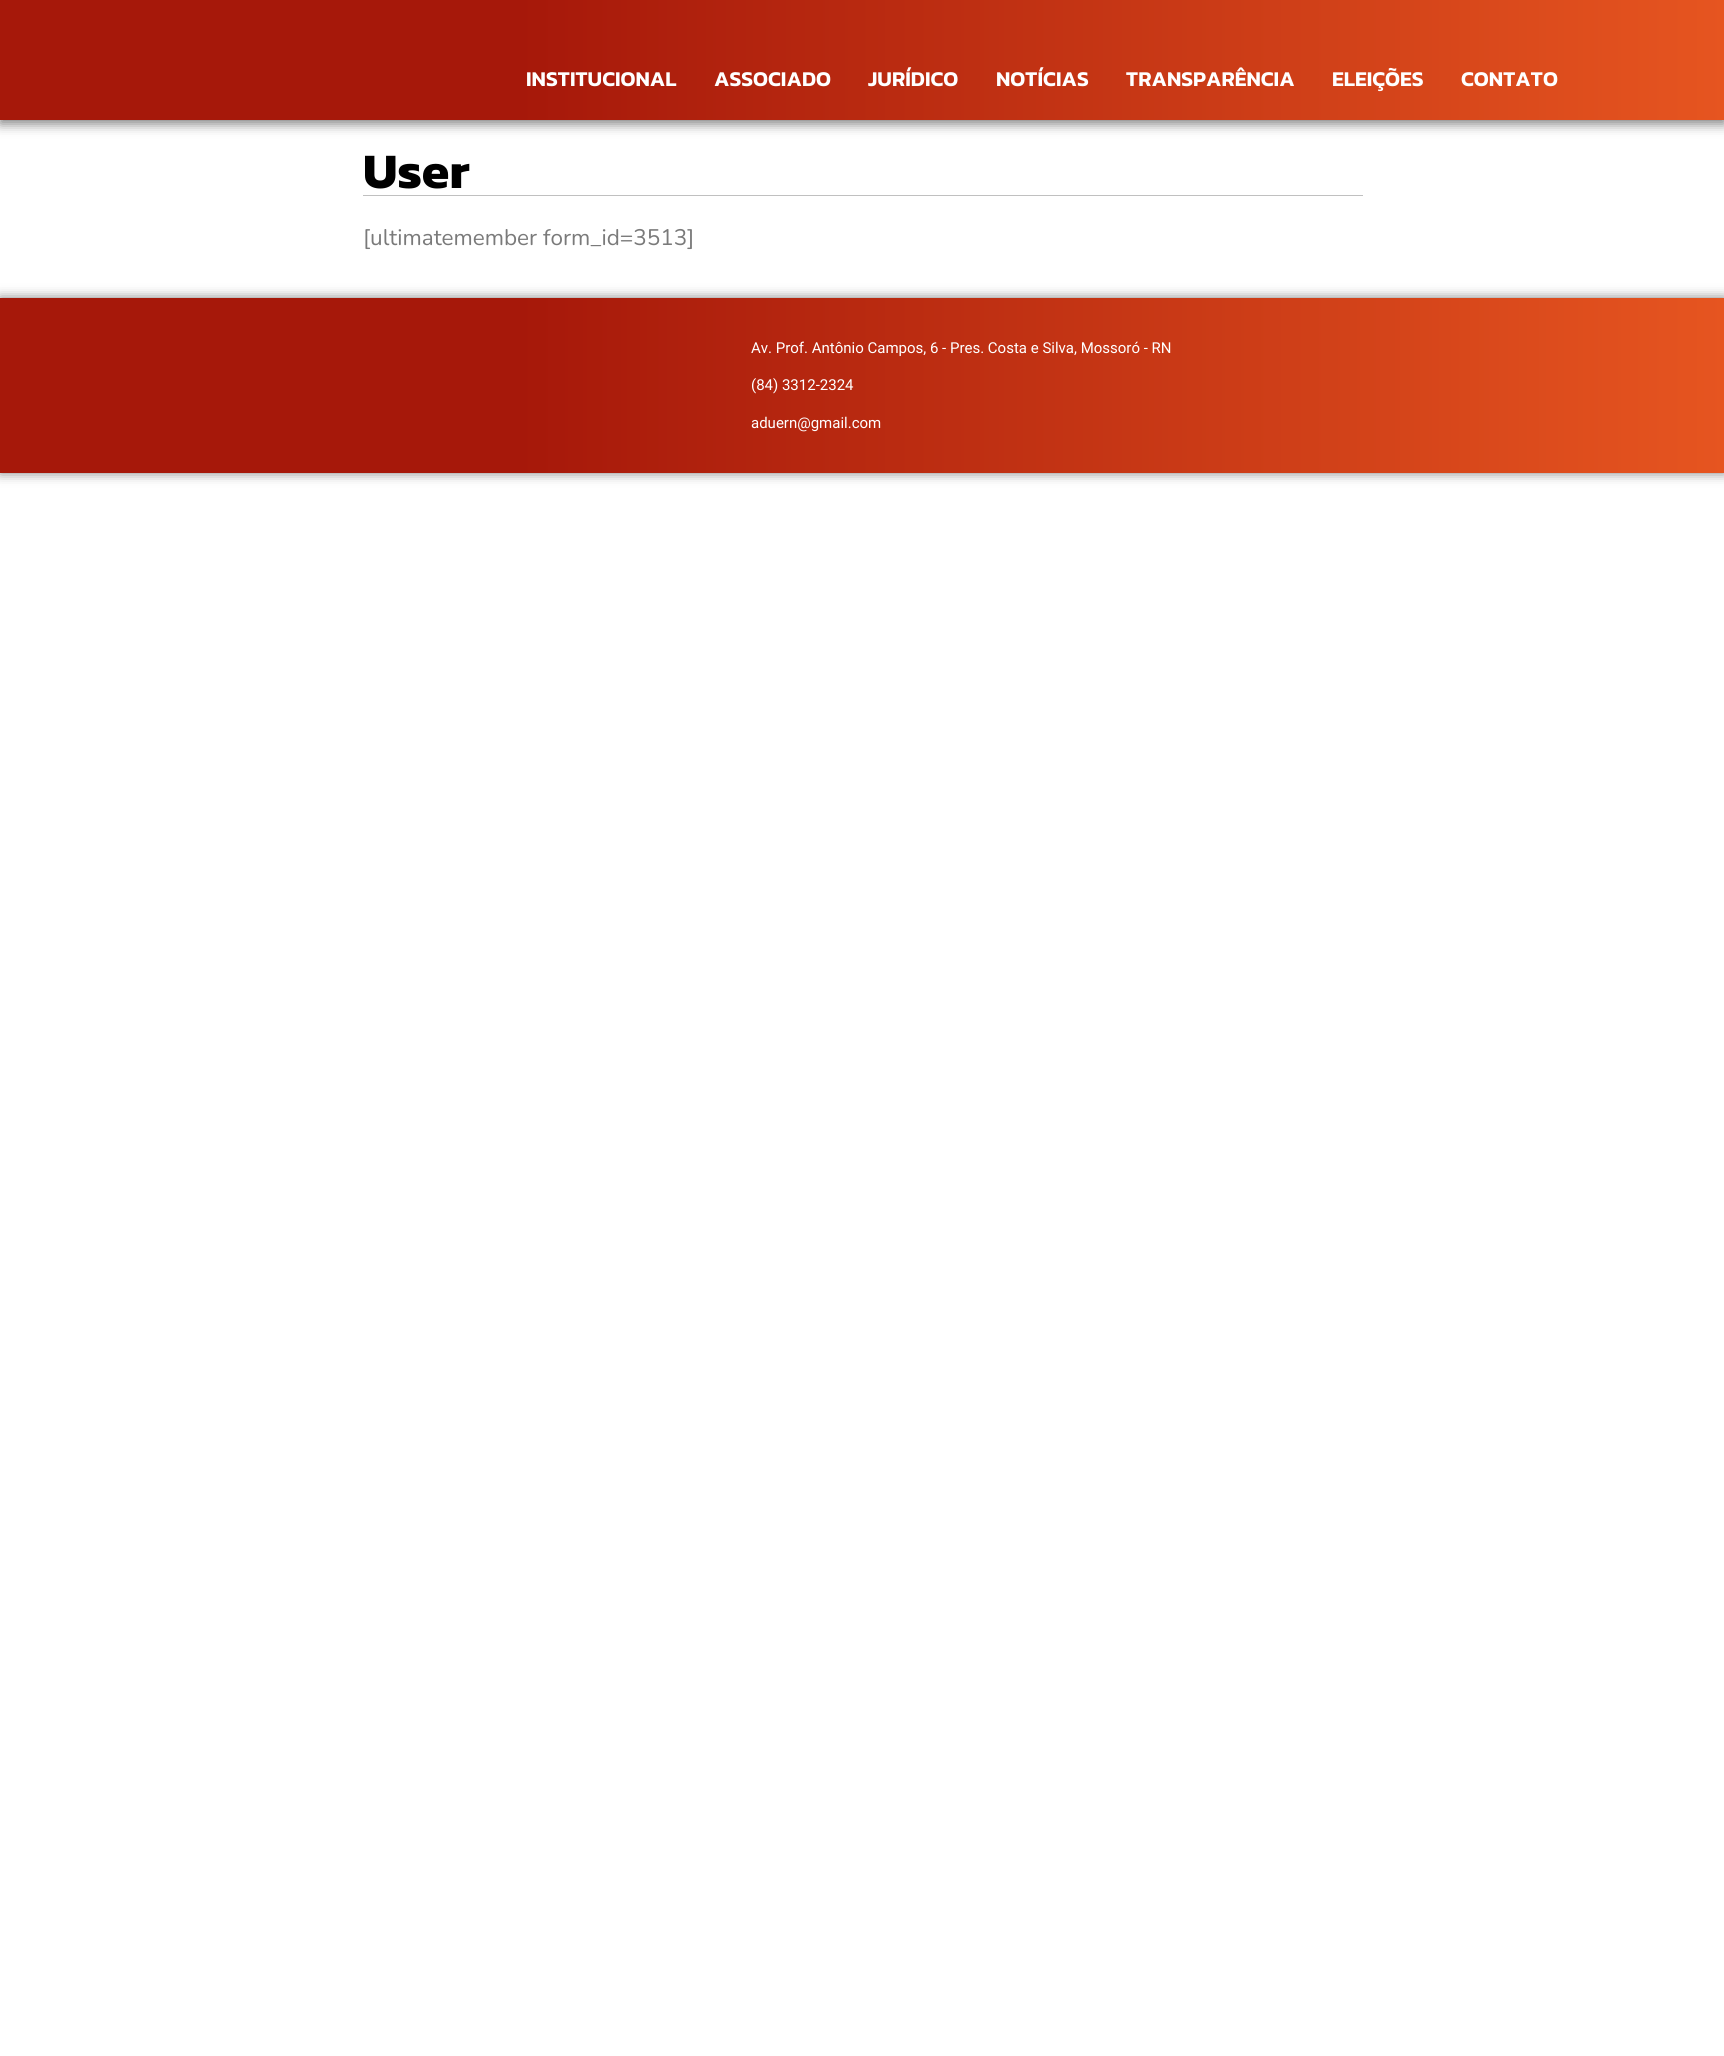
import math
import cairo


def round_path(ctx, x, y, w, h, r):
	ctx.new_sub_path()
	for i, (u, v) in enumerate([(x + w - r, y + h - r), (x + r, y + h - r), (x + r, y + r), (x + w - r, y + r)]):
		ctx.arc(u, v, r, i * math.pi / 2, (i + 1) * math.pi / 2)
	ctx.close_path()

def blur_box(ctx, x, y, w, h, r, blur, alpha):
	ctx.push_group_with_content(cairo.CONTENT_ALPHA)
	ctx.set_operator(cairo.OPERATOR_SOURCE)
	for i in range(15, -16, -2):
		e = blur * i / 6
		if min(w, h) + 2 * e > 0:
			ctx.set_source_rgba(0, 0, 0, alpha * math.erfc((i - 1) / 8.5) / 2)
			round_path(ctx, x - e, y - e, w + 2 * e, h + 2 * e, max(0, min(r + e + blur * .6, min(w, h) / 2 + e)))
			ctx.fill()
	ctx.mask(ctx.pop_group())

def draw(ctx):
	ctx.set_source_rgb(1, 1, 1)
	ctx.paint()
	ctx.set_source_rgb(0, 0, 0)
	blur_box(ctx, 0, 4, 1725, 120, 0, 6, 0.5)
	gradient = cairo.LinearGradient(0, 60, 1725, 60)
	gradient.add_color_stop_rgba(0.3, 0.651, 0.094, 0.039, 1)
	gradient.add_color_stop_rgba(1, 0.902, 0.333, 0.125, 1)
	ctx.set_source(gradient)
	ctx.rectangle(0, 0, 1724, 120)
	ctx.fill()
	ctx.select_font_face('Kanit SemiBold')
	ctx.set_font_size(21.25)
	ctx.set_source_rgb(1, 1, 1)
	for x, y, s in [
		(526, 86, 'INSTITUCIONAL'),
		(714, 86, 'ASSOCIADO'),
		(868, 86, 'JURÍDICO'),
		(996, 86, 'NOTÍCIAS'),
		(1126, 86, 'TRANSPARÊNCIA'),
		(1332, 86, 'ELEIÇÕES'),
		(1461, 86, 'CONTATO'),
	]:
		ctx.move_to(x, y)
		ctx.show_text(s)
	ctx.set_source_rgb(0.753, 0.753, 0.753)
	ctx.rectangle(363, 195, 1000, 1)
	ctx.fill()
	ctx.select_font_face('Kanit', cairo.FONT_SLANT_NORMAL, cairo.FONT_WEIGHT_BOLD)
	ctx.set_font_size(50)
	ctx.set_source_rgb(0, 0, 0)
	ctx.move_to(363, 188)
	ctx.show_text('User')
	ctx.select_font_face('Nunito')
	ctx.set_font_size(22.5)
	ctx.set_source_rgb(0.478, 0.478, 0.478)
	ctx.move_to(363, 245)
	ctx.show_text('[ultimatemember form_id=3513]')
	ctx.set_source_rgb(0, 0, 0)
	blur_box(ctx, 0, 298, 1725, 175, 0, 6, 0.5)
	gradient = cairo.LinearGradient(0, 385, 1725, 385)
	gradient.add_color_stop_rgba(0.3, 0.651, 0.094, 0.039, 1)
	gradient.add_color_stop_rgba(1, 0.902, 0.333, 0.125, 1)
	ctx.set_source(gradient)
	ctx.rectangle(0, 298, 1724, 175)
	ctx.fill()
	ctx.select_font_face('Roboto')
	ctx.set_font_size(15)
	ctx.set_source_rgb(1, 1, 1)
	for x, y, s in [
		(751, 353, 'Av. Prof. Antônio Campos, 6 - Pres. Costa e Silva, Mossoró - RN'),
		(751, 390, '(84) 3312-2324'),
		(751, 428, 'aduern@gmail.com'),
	]:
		ctx.move_to(x, y)
		ctx.show_text(s)


surface = cairo.ImageSurface(cairo.FORMAT_RGB24, 1724, 2056)
ctx = cairo.Context(surface)
options = cairo.FontOptions()
options.set_hint_metrics(cairo.HINT_METRICS_OFF)
options.set_hint_style(cairo.HINT_STYLE_NONE)
ctx.set_font_options(options)
ctx.set_miter_limit(4)
draw(ctx)
surface.write_to_png('image.png')
